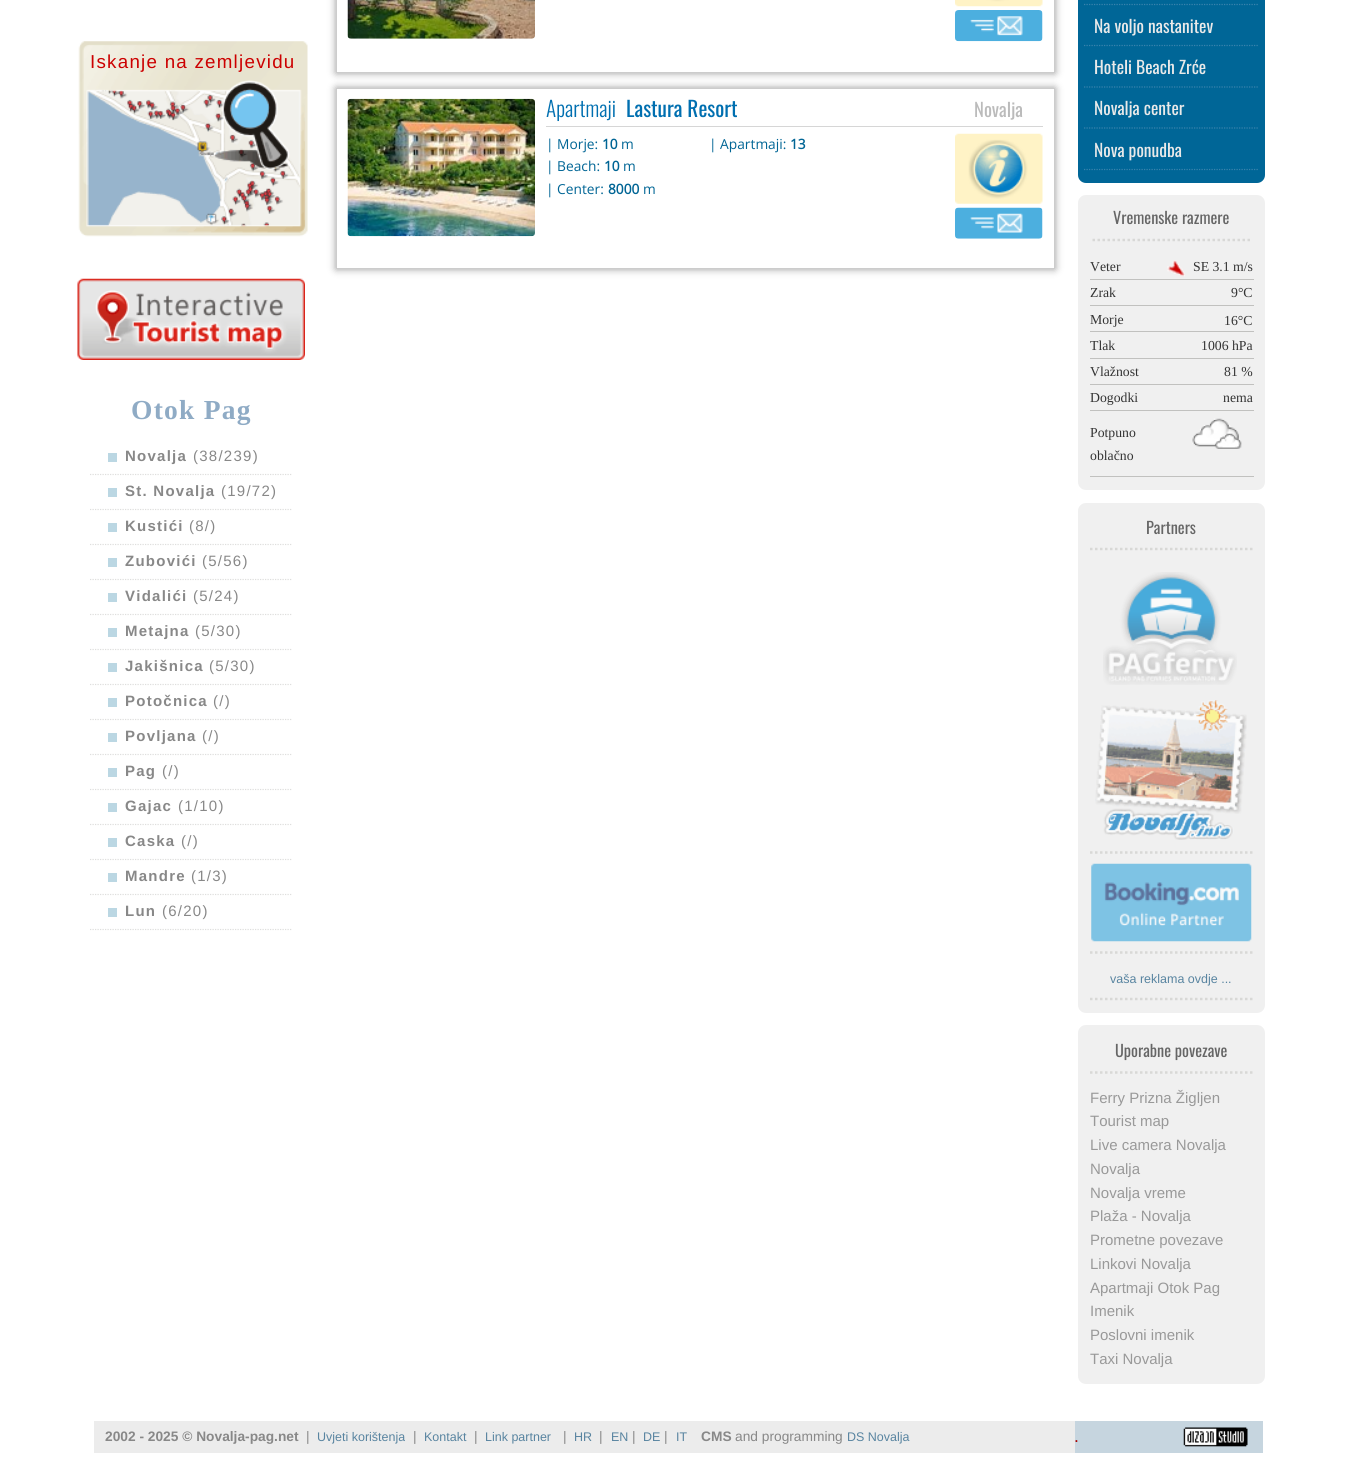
import math
import cairo


def write_spaced(ctx, x, y, s, letter, word):
	ctx.move_to(x, y)
	for ch in s:
		ctx.show_text(ch)
		ctx.rel_move_to(letter + word * (ch == ' '), 0)

def round_path(ctx, x, y, w, h, r):
	ctx.new_sub_path()
	for i, (u, v) in enumerate([(x + w - r, y + h - r), (x + r, y + h - r), (x + r, y + r), (x + w - r, y + r)]):
		ctx.arc(u, v, r, i * math.pi / 2, (i + 1) * math.pi / 2)
	ctx.close_path()

def blur_box(ctx, x, y, w, h, r, blur, alpha):
	ctx.push_group_with_content(cairo.CONTENT_ALPHA)
	ctx.set_operator(cairo.OPERATOR_SOURCE)
	for i in range(15, -16, -2):
		e = blur * i / 6
		if min(w, h) + 2 * e > 0:
			ctx.set_source_rgba(0, 0, 0, alpha * math.erfc((i - 1) / 8.5) / 2)
			round_path(ctx, x - e, y - e, w + 2 * e, h + 2 * e, max(0, min(r + e + blur * .6, min(w, h) / 2 + e)))
			ctx.fill()
	ctx.mask(ctx.pop_group())

def paste(ctx, path, x, y, w, h):
	ctx.save()
	ctx.set_source_surface(cairo.ImageSurface.create_from_png(path), x, y)
	ctx.rectangle(x, y, w, h)
	ctx.fill()
	ctx.restore()

def draw(ctx):
	ctx.set_source_rgb(1, 1, 1)
	ctx.paint()
	paste(ctx, 'media/1.png', 78, 41, 230, 196)
	ctx.select_font_face('Liberation Sans')
	ctx.set_font_size(18.75)
	ctx.set_source_rgb(0.8, 0, 0)
	write_spaced(ctx, 90, 68, 'Iskanje na zemljevidu', 1.25, 0)
	paste(ctx, 'media/2.png', 77, 278, 228, 82)
	ctx.select_font_face('Liberation Serif', cairo.FONT_SLANT_NORMAL, cairo.FONT_WEIGHT_BOLD)
	ctx.set_font_size(27.5)
	ctx.set_source_rgb(0.561, 0.671, 0.773)
	write_spaced(ctx, 131, 419, 'Otok Pag', 1.25, 0)
	ctx.new_path()
	ctx.move_to(90, 474.5)
	ctx.line_to(292.5, 474.5)
	ctx.set_source_rgb(0.871, 0.871, 0.867)
	ctx.set_line_width(1.2)
	ctx.set_dash([1.25, 1.25])
	ctx.stroke()
	ctx.set_source_rgb(0.733, 0.843, 0.89)
	ctx.rectangle(108, 453, 9, 9)
	ctx.fill()
	ctx.select_font_face('Liberation Sans', cairo.FONT_SLANT_NORMAL, cairo.FONT_WEIGHT_BOLD)
	ctx.set_font_size(15)
	ctx.set_source_rgb(0.533, 0.533, 0.533)
	write_spaced(ctx, 125, 461, 'Novalja', 1.25, 0)
	ctx.select_font_face('Liberation Sans')
	write_spaced(ctx, 193, 461, '(38/239)', 1.25, 0)
	ctx.new_path()
	ctx.move_to(90, 509.5)
	ctx.line_to(292.5, 509.5)
	ctx.set_source_rgb(0.871, 0.871, 0.867)
	ctx.stroke()
	ctx.set_source_rgb(0.733, 0.843, 0.89)
	ctx.rectangle(108, 488, 9, 9)
	ctx.fill()
	ctx.select_font_face('Liberation Sans', cairo.FONT_SLANT_NORMAL, cairo.FONT_WEIGHT_BOLD)
	ctx.set_source_rgb(0.533, 0.533, 0.533)
	write_spaced(ctx, 125, 496, 'St. Novalja', 1.25, 0)
	ctx.select_font_face('Liberation Sans')
	write_spaced(ctx, 221, 496, '(19/72)', 1.25, 0)
	ctx.new_path()
	ctx.move_to(90, 544.5)
	ctx.line_to(292.5, 544.5)
	ctx.set_source_rgb(0.871, 0.871, 0.867)
	ctx.stroke()
	ctx.set_source_rgb(0.733, 0.843, 0.89)
	ctx.rectangle(108, 523, 9, 9)
	ctx.fill()
	ctx.select_font_face('Liberation Sans', cairo.FONT_SLANT_NORMAL, cairo.FONT_WEIGHT_BOLD)
	ctx.set_source_rgb(0.533, 0.533, 0.533)
	write_spaced(ctx, 125, 531, 'Kustići', 1.25, 0)
	ctx.select_font_face('Liberation Sans')
	write_spaced(ctx, 189, 531, '(8/)', 1.25, 0)
	ctx.new_path()
	ctx.move_to(90, 579.5)
	ctx.line_to(292.5, 579.5)
	ctx.set_source_rgb(0.871, 0.871, 0.867)
	ctx.stroke()
	ctx.set_source_rgb(0.733, 0.843, 0.89)
	ctx.rectangle(108, 558, 9, 9)
	ctx.fill()
	ctx.select_font_face('Liberation Sans', cairo.FONT_SLANT_NORMAL, cairo.FONT_WEIGHT_BOLD)
	ctx.set_source_rgb(0.533, 0.533, 0.533)
	write_spaced(ctx, 125, 566, 'Zubovići', 1.25, 0)
	ctx.select_font_face('Liberation Sans')
	write_spaced(ctx, 202, 566, '(5/56)', 1.25, 0)
	ctx.new_path()
	ctx.move_to(90, 614.5)
	ctx.line_to(292.5, 614.5)
	ctx.set_source_rgb(0.871, 0.871, 0.867)
	ctx.stroke()
	ctx.set_source_rgb(0.733, 0.843, 0.89)
	ctx.rectangle(108, 593, 9, 9)
	ctx.fill()
	ctx.select_font_face('Liberation Sans', cairo.FONT_SLANT_NORMAL, cairo.FONT_WEIGHT_BOLD)
	ctx.set_source_rgb(0.533, 0.533, 0.533)
	write_spaced(ctx, 125, 601, 'Vidalići', 1.25, 0)
	ctx.select_font_face('Liberation Sans')
	write_spaced(ctx, 193, 601, '(5/24)', 1.25, 0)
	ctx.new_path()
	ctx.move_to(90, 649.5)
	ctx.line_to(292.5, 649.5)
	ctx.set_source_rgb(0.871, 0.871, 0.867)
	ctx.stroke()
	ctx.set_source_rgb(0.733, 0.843, 0.89)
	ctx.rectangle(108, 628, 9, 9)
	ctx.fill()
	ctx.select_font_face('Liberation Sans', cairo.FONT_SLANT_NORMAL, cairo.FONT_WEIGHT_BOLD)
	ctx.set_source_rgb(0.533, 0.533, 0.533)
	write_spaced(ctx, 125, 636, 'Metajna', 1.25, 0)
	ctx.select_font_face('Liberation Sans')
	write_spaced(ctx, 195, 636, '(5/30)', 1.25, 0)
	ctx.new_path()
	ctx.move_to(90, 684.5)
	ctx.line_to(292.5, 684.5)
	ctx.set_source_rgb(0.871, 0.871, 0.867)
	ctx.stroke()
	ctx.set_source_rgb(0.733, 0.843, 0.89)
	ctx.rectangle(108, 663, 9, 9)
	ctx.fill()
	ctx.select_font_face('Liberation Sans', cairo.FONT_SLANT_NORMAL, cairo.FONT_WEIGHT_BOLD)
	ctx.set_source_rgb(0.533, 0.533, 0.533)
	write_spaced(ctx, 125, 671, 'Jakišnica', 1.25, 0)
	ctx.select_font_face('Liberation Sans')
	write_spaced(ctx, 209, 671, '(5/30)', 1.25, 0)
	ctx.new_path()
	ctx.move_to(90, 719.5)
	ctx.line_to(292.5, 719.5)
	ctx.set_source_rgb(0.871, 0.871, 0.867)
	ctx.stroke()
	ctx.set_source_rgb(0.733, 0.843, 0.89)
	ctx.rectangle(108, 698, 9, 9)
	ctx.fill()
	ctx.select_font_face('Liberation Sans', cairo.FONT_SLANT_NORMAL, cairo.FONT_WEIGHT_BOLD)
	ctx.set_source_rgb(0.533, 0.533, 0.533)
	write_spaced(ctx, 125, 706, 'Potočnica', 1.25, 0)
	ctx.select_font_face('Liberation Sans')
	write_spaced(ctx, 213, 706, '(/)', 1.25, 0)
	ctx.new_path()
	ctx.move_to(90, 754.5)
	ctx.line_to(292.5, 754.5)
	ctx.set_source_rgb(0.871, 0.871, 0.867)
	ctx.stroke()
	ctx.set_source_rgb(0.733, 0.843, 0.89)
	ctx.rectangle(108, 733, 9, 9)
	ctx.fill()
	ctx.select_font_face('Liberation Sans', cairo.FONT_SLANT_NORMAL, cairo.FONT_WEIGHT_BOLD)
	ctx.set_source_rgb(0.533, 0.533, 0.533)
	write_spaced(ctx, 125, 741, 'Povljana', 1.25, 0)
	ctx.select_font_face('Liberation Sans')
	write_spaced(ctx, 202, 741, '(/)', 1.25, 0)
	ctx.new_path()
	ctx.move_to(90, 789.5)
	ctx.line_to(292.5, 789.5)
	ctx.set_source_rgb(0.871, 0.871, 0.867)
	ctx.stroke()
	ctx.set_source_rgb(0.733, 0.843, 0.89)
	ctx.rectangle(108, 768, 9, 9)
	ctx.fill()
	ctx.select_font_face('Liberation Sans', cairo.FONT_SLANT_NORMAL, cairo.FONT_WEIGHT_BOLD)
	ctx.set_source_rgb(0.533, 0.533, 0.533)
	write_spaced(ctx, 125, 776, 'Pag', 1.25, 0)
	ctx.select_font_face('Liberation Sans')
	write_spaced(ctx, 162, 776, '(/)', 1.25, 0)
	ctx.new_path()
	ctx.move_to(90, 824.5)
	ctx.line_to(292.5, 824.5)
	ctx.set_source_rgb(0.871, 0.871, 0.867)
	ctx.stroke()
	ctx.set_source_rgb(0.733, 0.843, 0.89)
	ctx.rectangle(108, 803, 9, 9)
	ctx.fill()
	ctx.select_font_face('Liberation Sans', cairo.FONT_SLANT_NORMAL, cairo.FONT_WEIGHT_BOLD)
	ctx.set_source_rgb(0.533, 0.533, 0.533)
	write_spaced(ctx, 125, 811, 'Gajac', 1.25, 0)
	ctx.select_font_face('Liberation Sans')
	write_spaced(ctx, 178, 811, '(1/10)', 1.25, 0)
	ctx.new_path()
	ctx.move_to(90, 859.5)
	ctx.line_to(292.5, 859.5)
	ctx.set_source_rgb(0.871, 0.871, 0.867)
	ctx.stroke()
	ctx.set_source_rgb(0.733, 0.843, 0.89)
	ctx.rectangle(108, 838, 9, 9)
	ctx.fill()
	ctx.select_font_face('Liberation Sans', cairo.FONT_SLANT_NORMAL, cairo.FONT_WEIGHT_BOLD)
	ctx.set_source_rgb(0.533, 0.533, 0.533)
	write_spaced(ctx, 125, 846, 'Caska', 1.25, 0)
	ctx.select_font_face('Liberation Sans')
	write_spaced(ctx, 181, 846, '(/)', 1.25, 0)
	ctx.new_path()
	ctx.move_to(90, 894.5)
	ctx.line_to(292.5, 894.5)
	ctx.set_source_rgb(0.871, 0.871, 0.867)
	ctx.stroke()
	ctx.set_source_rgb(0.733, 0.843, 0.89)
	ctx.rectangle(108, 873, 9, 9)
	ctx.fill()
	ctx.select_font_face('Liberation Sans', cairo.FONT_SLANT_NORMAL, cairo.FONT_WEIGHT_BOLD)
	ctx.set_source_rgb(0.533, 0.533, 0.533)
	write_spaced(ctx, 125, 881, 'Mandre', 1.25, 0)
	ctx.select_font_face('Liberation Sans')
	write_spaced(ctx, 191, 881, '(1/3)', 1.25, 0)
	ctx.new_path()
	ctx.move_to(90, 929.5)
	ctx.line_to(292.5, 929.5)
	ctx.set_source_rgb(0.871, 0.871, 0.867)
	ctx.stroke()
	ctx.set_source_rgb(0.733, 0.843, 0.89)
	ctx.rectangle(108, 908, 9, 9)
	ctx.fill()
	ctx.select_font_face('Liberation Sans', cairo.FONT_SLANT_NORMAL, cairo.FONT_WEIGHT_BOLD)
	ctx.set_source_rgb(0.533, 0.533, 0.533)
	write_spaced(ctx, 125, 916, 'Lun', 1.25, 0)
	ctx.select_font_face('Liberation Sans')
	write_spaced(ctx, 162, 916, '(6/20)', 1.25, 0)
	ctx.save()
	ctx.set_fill_rule(cairo.FILL_RULE_EVEN_ODD)
	ctx.new_path()
	ctx.move_to(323, 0)
	ctx.line_to(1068, 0)
	ctx.line_to(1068, 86)
	ctx.line_to(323, 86)
	ctx.close_path()
	ctx.move_to(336, -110)
	ctx.line_to(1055, -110)
	ctx.line_to(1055, 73)
	ctx.line_to(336, 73)
	ctx.close_path()
	ctx.clip()
	ctx.set_source_rgb(0.6, 0.6, 0.6)
	blur_box(ctx, 336, -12, 719, 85, 0, 4, 1)
	ctx.restore()
	ctx.rectangle(336.5, -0.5, 718, 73)
	ctx.set_source_rgb(0.8, 0.8, 0.8)
	ctx.set_line_width(1)
	ctx.set_dash([])
	ctx.stroke()
	paste(ctx, 'media/3.png', 347, 0, 188, 39)
	paste(ctx, 'media/4.png', 955, 0, 88, 7)
	paste(ctx, 'media/5.png', 955, 10, 88, 32)
	ctx.save()
	ctx.set_fill_rule(cairo.FILL_RULE_EVEN_ODD)
	ctx.new_path()
	ctx.move_to(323, 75)
	ctx.line_to(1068, 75)
	ctx.line_to(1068, 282)
	ctx.line_to(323, 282)
	ctx.close_path()
	ctx.move_to(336, 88)
	ctx.line_to(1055, 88)
	ctx.line_to(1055, 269)
	ctx.line_to(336, 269)
	ctx.close_path()
	ctx.clip()
	ctx.set_source_rgb(0.6, 0.6, 0.6)
	blur_box(ctx, 336, 88, 719, 181, 0, 4, 1)
	ctx.restore()
	ctx.rectangle(336.5, 88.5, 718, 180)
	ctx.stroke()
	paste(ctx, 'media/6.png', 347, 98, 188, 139)
	ctx.set_source_rgb(0.839, 0.839, 0.839)
	ctx.rectangle(546, 126, 497, 1)
	ctx.fill()
	ctx.select_font_face('Oswald Light')
	ctx.set_font_size(21.25)
	ctx.set_source_rgb(0, 0.435, 0.69)
	ctx.move_to(546, 117)
	ctx.show_text('Apartmaji')
	ctx.select_font_face('Oswald')
	ctx.move_to(626, 117)
	ctx.show_text('Lastura Resort')
	ctx.set_font_size(18.75)
	ctx.set_source_rgb(0.733, 0.733, 0.733)
	ctx.move_to(974, 117)
	ctx.show_text('Novalja')
	ctx.select_font_face('Open Sans')
	ctx.set_font_size(13.75)
	ctx.set_source_rgb(0, 0.396, 0.584)
	ctx.move_to(546, 149)
	ctx.show_text('| Morje:')
	ctx.select_font_face('Open Sans', cairo.FONT_SLANT_NORMAL, cairo.FONT_WEIGHT_BOLD)
	ctx.move_to(602, 149)
	ctx.show_text('10')
	ctx.select_font_face('Open Sans')
	ctx.move_to(621, 149)
	ctx.show_text('m')
	ctx.move_to(546, 171)
	ctx.show_text('| Beach:')
	ctx.select_font_face('Open Sans', cairo.FONT_SLANT_NORMAL, cairo.FONT_WEIGHT_BOLD)
	ctx.move_to(604, 171)
	ctx.show_text('10')
	ctx.select_font_face('Open Sans')
	ctx.move_to(623, 171)
	ctx.show_text('m')
	ctx.move_to(546, 194)
	ctx.show_text('| Center:')
	ctx.select_font_face('Open Sans', cairo.FONT_SLANT_NORMAL, cairo.FONT_WEIGHT_BOLD)
	ctx.move_to(608, 194)
	ctx.show_text('8000')
	ctx.select_font_face('Open Sans')
	ctx.move_to(643, 194)
	ctx.show_text('m')
	ctx.move_to(709, 149)
	ctx.show_text('| Apartmaji:')
	ctx.select_font_face('Open Sans', cairo.FONT_SLANT_NORMAL, cairo.FONT_WEIGHT_BOLD)
	ctx.move_to(790, 149)
	ctx.show_text('13')
	paste(ctx, 'media/7.png', 955, 133, 88, 71)
	paste(ctx, 'media/8.png', 955, 207, 88, 32)
	ctx.set_source_rgb(0, 0.4, 0.592)
	round_path(ctx, 1078, -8, 187, 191, 8)
	ctx.fill()
	ctx.new_path()
	ctx.move_to(1084, 4.5)
	ctx.line_to(1259, 4.5)
	ctx.set_source_rgb(0.227, 0.514, 0.678)
	ctx.set_line_width(1.2)
	ctx.set_dash([1.25, 1.25])
	ctx.stroke()
	ctx.new_path()
	ctx.move_to(1084, 45.5)
	ctx.line_to(1259, 45.5)
	ctx.stroke()
	ctx.select_font_face('Oswald')
	ctx.set_font_size(17.5)
	ctx.set_source_rgb(0.914, 0.914, 0.914)
	ctx.move_to(1094, 33)
	ctx.show_text('Na voljo nastanitev')
	ctx.new_path()
	ctx.move_to(1084, 87)
	ctx.line_to(1259, 87)
	ctx.set_source_rgb(0.227, 0.514, 0.678)
	ctx.stroke()
	ctx.set_source_rgb(0.914, 0.914, 0.914)
	ctx.move_to(1094, 74)
	ctx.show_text('Hoteli Beach Zrće')
	ctx.new_path()
	ctx.move_to(1084, 128)
	ctx.line_to(1259, 128)
	ctx.set_source_rgb(0.227, 0.514, 0.678)
	ctx.stroke()
	ctx.set_source_rgb(0.914, 0.914, 0.914)
	ctx.move_to(1094, 115)
	ctx.show_text('Novalja center')
	ctx.new_path()
	ctx.move_to(1084, 169.5)
	ctx.line_to(1259, 169.5)
	ctx.set_source_rgb(0.227, 0.514, 0.678)
	ctx.stroke()
	ctx.set_source_rgb(0.914, 0.914, 0.914)
	ctx.move_to(1094, 157)
	ctx.show_text('Nova ponudba')
	ctx.set_source_rgb(0.941, 0.941, 0.941)
	round_path(ctx, 1078, 195, 187, 295, 8)
	ctx.fill()
	ctx.new_path()
	ctx.move_to(1092.5, 240)
	ctx.line_to(1250, 240)
	ctx.set_source_rgb(0.847, 0.847, 0.839)
	ctx.set_line_width(2.5)
	ctx.set_dash([2.5, 2.5])
	ctx.stroke()
	ctx.set_font_size(16.25)
	ctx.set_source_rgb(0.4, 0.4, 0.4)
	ctx.move_to(1113, 224)
	ctx.show_text('Vremenske razmere')
	ctx.set_source_rgb(0.757, 0.757, 0.749)
	ctx.rectangle(1090, 279, 164, 1)
	ctx.fill()
	ctx.select_font_face('Liberation Serif')
	ctx.set_font_size(13.75)
	ctx.set_source_rgb(0.2, 0.2, 0.2)
	ctx.move_to(1090, 271)
	ctx.show_text('Veter')
	paste(ctx, 'media/9.png', 1167, 260, 18, 17)
	ctx.move_to(1193, 271)
	ctx.show_text('SE 3.1 m/s')
	ctx.set_source_rgb(0.757, 0.757, 0.749)
	ctx.rectangle(1090, 305, 164, 1)
	ctx.fill()
	ctx.set_source_rgb(0.2, 0.2, 0.2)
	ctx.move_to(1090, 297)
	ctx.show_text('Zrak')
	ctx.move_to(1231, 297)
	ctx.show_text('9°C')
	ctx.set_source_rgb(0.757, 0.757, 0.749)
	ctx.rectangle(1090, 331, 164, 1)
	ctx.fill()
	ctx.set_source_rgb(0.2, 0.2, 0.2)
	ctx.move_to(1090, 324)
	ctx.show_text('Morje')
	ctx.move_to(1224, 325)
	ctx.show_text('16°C')
	ctx.set_source_rgb(0.757, 0.757, 0.749)
	ctx.rectangle(1090, 358, 164, 1)
	ctx.fill()
	ctx.set_source_rgb(0.2, 0.2, 0.2)
	ctx.move_to(1090, 350)
	ctx.show_text('Tlak')
	ctx.move_to(1201, 350)
	ctx.show_text('1006 hPa')
	ctx.set_source_rgb(0.757, 0.757, 0.749)
	ctx.rectangle(1090, 384, 164, 1)
	ctx.fill()
	ctx.set_source_rgb(0.2, 0.2, 0.2)
	ctx.move_to(1090, 376)
	ctx.show_text('Vlažnost')
	ctx.move_to(1224, 376)
	ctx.show_text('81 %')
	ctx.set_source_rgb(0.757, 0.757, 0.749)
	ctx.rectangle(1090, 410, 164, 1)
	ctx.fill()
	ctx.set_source_rgb(0.2, 0.2, 0.2)
	ctx.move_to(1090, 402)
	ctx.show_text('Dogodki')
	ctx.move_to(1223, 402)
	ctx.show_text('nema')
	ctx.set_source_rgb(0.757, 0.757, 0.749)
	ctx.rectangle(1090, 476, 164, 1)
	ctx.fill()
	ctx.set_source_rgb(0.2, 0.2, 0.2)
	ctx.move_to(1090, 437)
	ctx.show_text('Potpuno')
	ctx.move_to(1090, 460)
	ctx.show_text('oblačno')
	paste(ctx, 'media/10.png', 1192, 418, 50, 31)
	ctx.set_source_rgb(0.941, 0.941, 0.941)
	round_path(ctx, 1078, 503, 187, 510, 8)
	ctx.fill()
	ctx.new_path()
	ctx.move_to(1090, 549)
	ctx.line_to(1252.5, 549)
	ctx.set_source_rgb(0.847, 0.847, 0.839)
	ctx.stroke()
	ctx.select_font_face('Oswald')
	ctx.set_font_size(16.25)
	ctx.set_source_rgb(0.4, 0.4, 0.4)
	ctx.move_to(1146, 534)
	ctx.show_text('Partners')
	paste(ctx, 'media/11.png', 1103, 572, 134, 113)
	paste(ctx, 'media/12.png', 1095, 700, 152, 140)
	ctx.new_path()
	ctx.move_to(1090, 852.5)
	ctx.line_to(1252.5, 852.5)
	ctx.set_source_rgb(0.847, 0.847, 0.839)
	ctx.stroke()
	paste(ctx, 'media/13.png', 1091, 863, 161, 79)
	ctx.new_path()
	ctx.move_to(1090, 952.5)
	ctx.line_to(1252.5, 952.5)
	ctx.stroke()
	ctx.new_path()
	ctx.move_to(1090, 999)
	ctx.line_to(1252.5, 999)
	ctx.stroke()
	ctx.select_font_face('Liberation Sans')
	ctx.set_font_size(12.5)
	ctx.set_source_rgb(0.345, 0.518, 0.627)
	ctx.move_to(1110, 983)
	ctx.show_text('vaša reklama ovdje ...')
	ctx.set_source_rgb(0.941, 0.941, 0.941)
	round_path(ctx, 1078, 1025, 187, 359, 8)
	ctx.fill()
	ctx.new_path()
	ctx.move_to(1090, 1072.5)
	ctx.line_to(1252.5, 1072.5)
	ctx.set_source_rgb(0.847, 0.847, 0.839)
	ctx.stroke()
	ctx.select_font_face('Oswald')
	ctx.set_font_size(16.25)
	ctx.set_source_rgb(0.4, 0.4, 0.4)
	ctx.move_to(1115, 1057)
	ctx.show_text('Uporabne povezave')
	ctx.select_font_face('Liberation Sans')
	ctx.set_font_size(15)
	ctx.set_source_rgb(0.6, 0.6, 0.6)
	for x, y, s in [
		(1090, 1103, 'Ferry Prizna Žigljen'),
		(1090, 1126, 'Tourist map'),
		(1090, 1150, 'Live camera Novalja'),
		(1090, 1174, 'Novalja'),
		(1090, 1198, 'Novalja vreme'),
		(1090, 1221, 'Plaža - Novalja'),
		(1090, 1245, 'Prometne povezave'),
		(1090, 1269, 'Linkovi Novalja'),
		(1090, 1293, 'Apartmaji Otok Pag'),
		(1090, 1316, 'Imenik'),
		(1090, 1340, 'Poslovni imenik'),
		(1090, 1364, 'Taxi Novalja'),
	]:
		ctx.move_to(x, y)
		ctx.show_text(s)
	ctx.set_source_rgb(0.922, 0.922, 0.922)
	ctx.rectangle(94, 1421, 981, 32)
	ctx.fill()
	ctx.select_font_face('Liberation Sans', cairo.FONT_SLANT_NORMAL, cairo.FONT_WEIGHT_BOLD)
	ctx.set_font_size(13.75)
	ctx.set_source_rgb(0.533, 0.533, 0.533)
	ctx.move_to(105, 1441)
	ctx.show_text('2002 - 2025 © Novalja-pag.net')
	ctx.select_font_face('Liberation Sans')
	ctx.move_to(306, 1441)
	ctx.show_text('|')
	ctx.set_font_size(12.5)
	ctx.set_source_rgb(0.345, 0.518, 0.627)
	ctx.move_to(317, 1441)
	ctx.show_text('Uvjeti korištenja')
	ctx.set_font_size(13.75)
	ctx.set_source_rgb(0.533, 0.533, 0.533)
	ctx.move_to(413, 1441)
	ctx.show_text('|')
	ctx.set_font_size(12.5)
	ctx.set_source_rgb(0.345, 0.518, 0.627)
	ctx.move_to(424, 1441)
	ctx.show_text('Kontakt')
	ctx.set_font_size(13.75)
	ctx.set_source_rgb(0.533, 0.533, 0.533)
	ctx.move_to(474, 1441)
	ctx.show_text('|')
	ctx.set_font_size(12.5)
	ctx.set_source_rgb(0.345, 0.518, 0.627)
	ctx.move_to(485, 1441)
	ctx.show_text('Link partner')
	ctx.set_font_size(13.75)
	ctx.set_source_rgb(0.533, 0.533, 0.533)
	ctx.move_to(563, 1441)
	ctx.show_text('|')
	ctx.set_font_size(12.5)
	ctx.set_source_rgb(0.345, 0.518, 0.627)
	ctx.move_to(574, 1441)
	ctx.show_text('HR')
	ctx.set_font_size(13.75)
	ctx.set_source_rgb(0.533, 0.533, 0.533)
	ctx.move_to(599, 1441)
	ctx.show_text('|')
	ctx.set_font_size(12.5)
	ctx.set_source_rgb(0.345, 0.518, 0.627)
	ctx.move_to(611, 1441)
	ctx.show_text('EN')
	ctx.set_font_size(13.75)
	ctx.set_source_rgb(0.533, 0.533, 0.533)
	ctx.move_to(632, 1441)
	ctx.show_text('|')
	ctx.set_font_size(12.5)
	ctx.set_source_rgb(0.345, 0.518, 0.627)
	ctx.move_to(643, 1441)
	ctx.show_text('DE')
	ctx.set_font_size(13.75)
	ctx.set_source_rgb(0.533, 0.533, 0.533)
	ctx.move_to(664, 1441)
	ctx.show_text('|')
	ctx.set_font_size(12.5)
	ctx.set_source_rgb(0.345, 0.518, 0.627)
	ctx.move_to(676, 1441)
	ctx.show_text('IT')
	ctx.select_font_face('Liberation Sans', cairo.FONT_SLANT_NORMAL, cairo.FONT_WEIGHT_BOLD)
	ctx.set_font_size(13.75)
	ctx.set_source_rgb(0.533, 0.533, 0.533)
	ctx.move_to(701, 1441)
	ctx.show_text('CMS')
	ctx.select_font_face('Liberation Sans')
	ctx.move_to(735, 1441)
	ctx.show_text('and programming')
	ctx.set_font_size(12.5)
	ctx.set_source_rgb(0.345, 0.518, 0.627)
	ctx.move_to(847, 1441)
	ctx.show_text('DS Novalja')
	ctx.set_source_rgb(0.776, 0.835, 0.875)
	ctx.rectangle(1075, 1421, 188, 32)
	ctx.fill()
	ctx.set_font_size(17.5)
	ctx.set_source_rgb(0.667, 0, 0)
	ctx.move_to(1074, 1442)
	ctx.show_text('.')
	paste(ctx, 'media/14.png', 1183, 1427, 65, 20)


surface = cairo.ImageSurface(cairo.FORMAT_RGB24, 1355, 1457)
ctx = cairo.Context(surface)
options = cairo.FontOptions()
options.set_hint_metrics(cairo.HINT_METRICS_OFF)
options.set_hint_style(cairo.HINT_STYLE_NONE)
ctx.set_font_options(options)
ctx.set_miter_limit(4)
draw(ctx)
surface.write_to_png('image.png')
